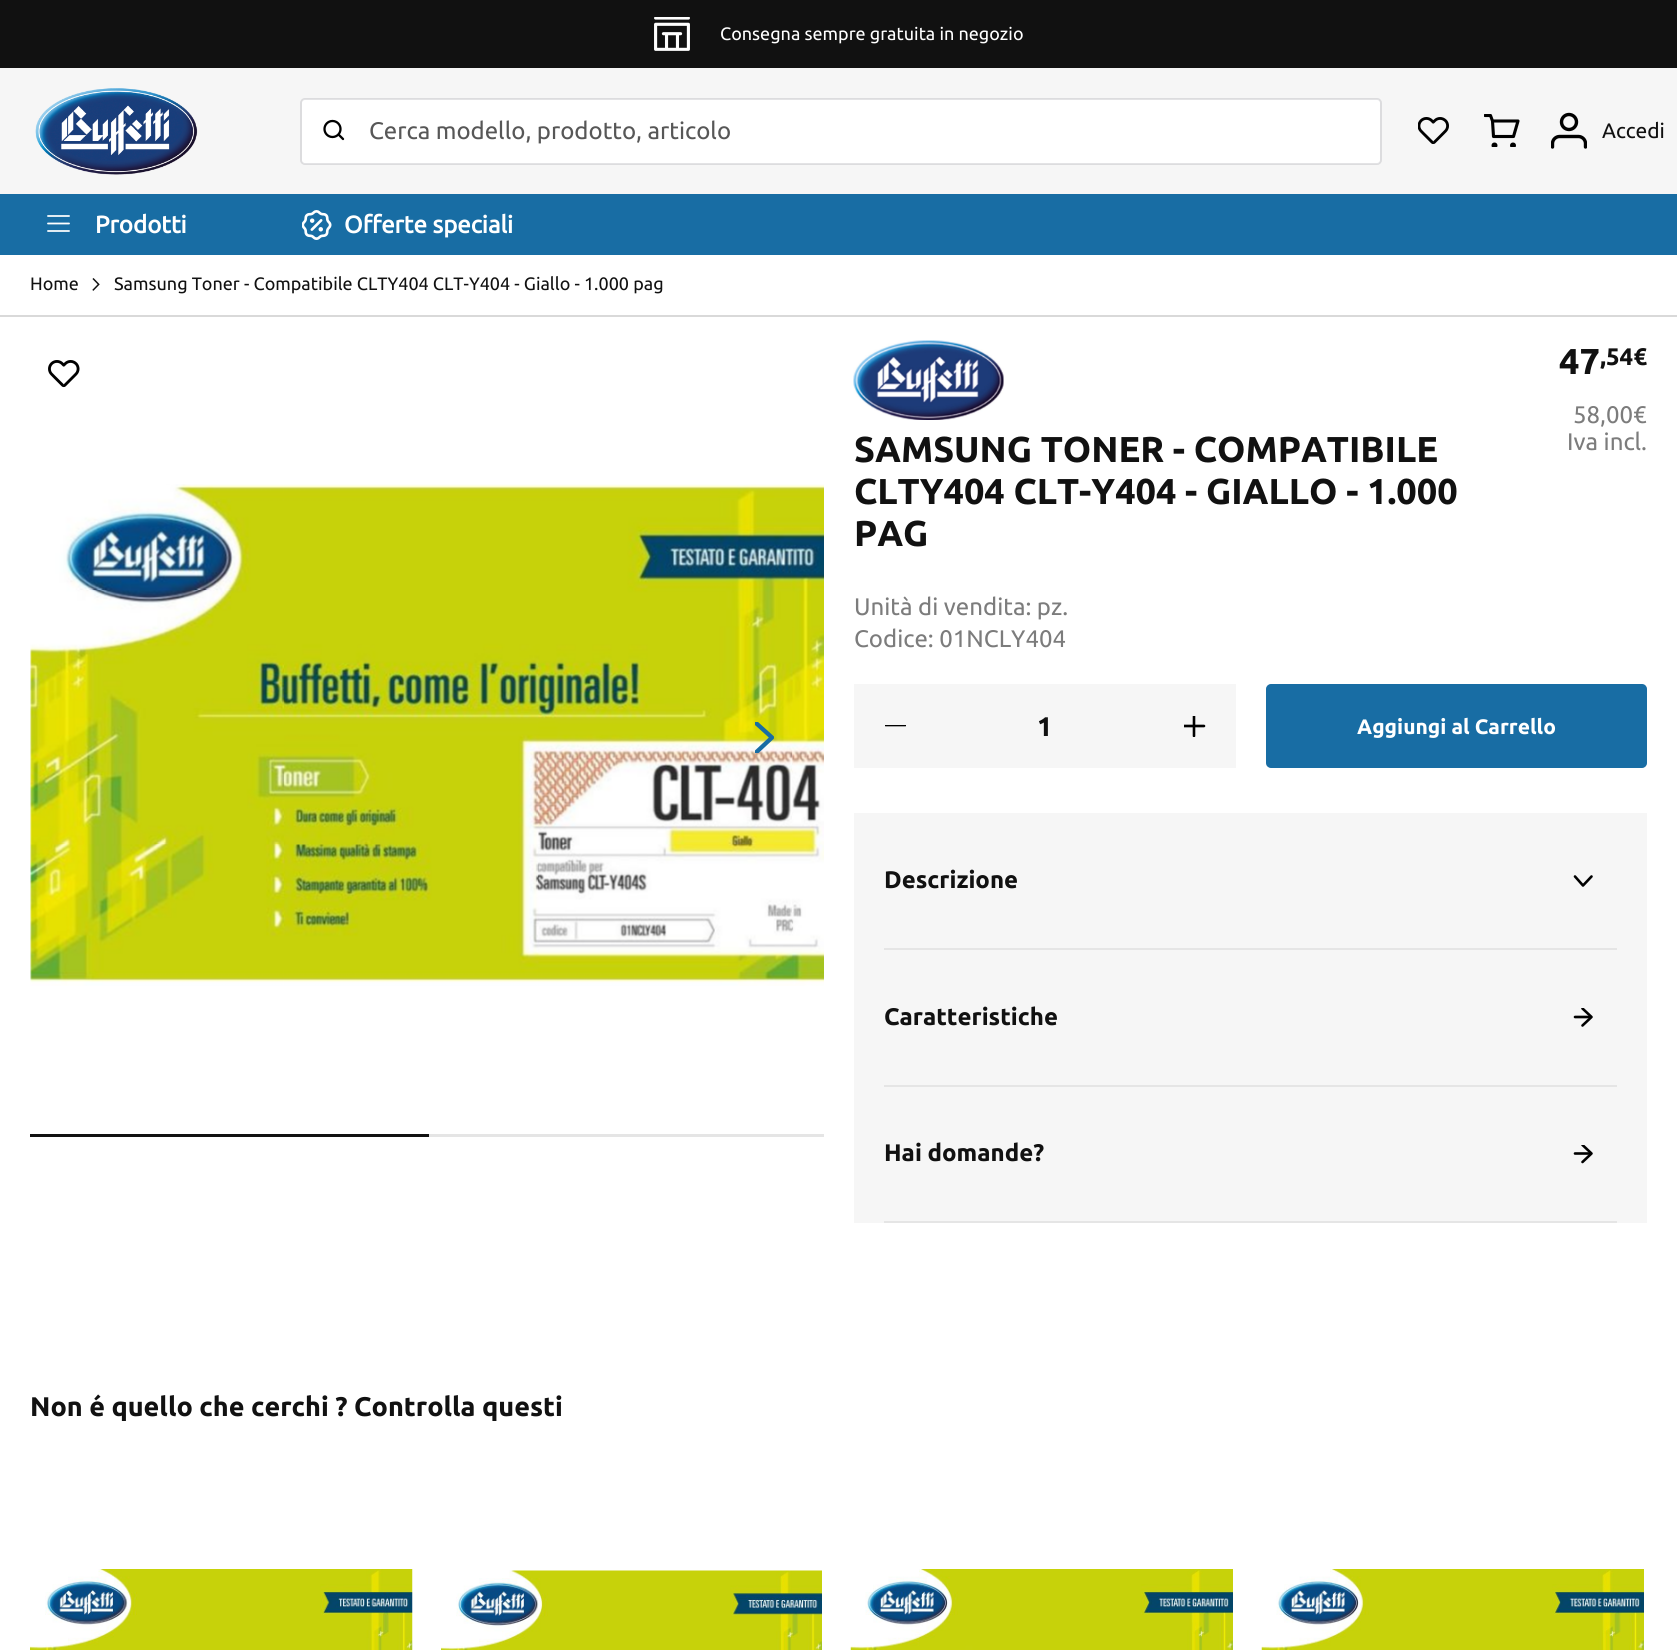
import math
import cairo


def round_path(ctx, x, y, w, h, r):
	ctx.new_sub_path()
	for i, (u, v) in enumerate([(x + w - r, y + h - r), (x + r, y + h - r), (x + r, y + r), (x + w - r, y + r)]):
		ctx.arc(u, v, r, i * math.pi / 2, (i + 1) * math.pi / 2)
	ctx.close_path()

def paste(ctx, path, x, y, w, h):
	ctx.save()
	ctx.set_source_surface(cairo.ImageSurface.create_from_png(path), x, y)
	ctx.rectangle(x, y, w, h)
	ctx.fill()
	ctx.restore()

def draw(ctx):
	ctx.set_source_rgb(1, 1, 1)
	ctx.paint()
	ctx.set_source_rgb(0.067, 0.067, 0.067)
	ctx.rectangle(0, 0, 1677, 68)
	ctx.fill()
	paste(ctx, 'media/1.png', 654, 17, 36, 34)
	ctx.select_font_face('Ubuntu')
	ctx.set_font_size(18)
	ctx.set_source_rgb(1, 1, 1)
	ctx.move_to(720, 40)
	ctx.show_text('Consegna sempre gratuita in negozio')
	ctx.set_source_rgb(0.961, 0.961, 0.961)
	ctx.rectangle(0, 68, 1677, 126)
	ctx.fill()
	paste(ctx, 'media/2.png', 35, 88, 163, 87)
	ctx.set_source_rgb(1, 1, 1)
	round_path(ctx, 302, 99, 1078, 65, 3)
	ctx.fill()
	round_path(ctx, 301, 99, 1080, 65, 4)
	ctx.set_source_rgba(0.463, 0.463, 0.502, 0.2)
	ctx.stroke()
	ctx.arc(332.5, 129, 8, 0, 2 * math.pi)
	ctx.set_source_rgb(0, 0, 0)
	ctx.set_line_width(2.3)
	ctx.stroke()
	ctx.new_path()
	ctx.move_to(339, 135)
	ctx.line_to(343, 139)
	ctx.set_line_cap(cairo.LINE_CAP_ROUND)
	ctx.set_line_join(cairo.LINE_JOIN_ROUND)
	ctx.stroke()
	ctx.set_font_size(24)
	ctx.set_source_rgb(0.341, 0.341, 0.341)
	ctx.move_to(369, 139)
	ctx.show_text('Cerca modello, prodotto, articolo')
	paste(ctx, 'media/3.png', 1418, 117, 31, 27)
	ctx.save()
	ctx.rectangle(1484, 114, 36, 33)
	ctx.clip()
	ctx.new_path()
	ctx.move_to(1485, 115.5)
	ctx.line_to(1490.5, 115.5)
	ctx.line_to(1492.5, 121)
	ctx.move_to(1492.5, 121)
	ctx.line_to(1493.5, 136.5)
	ctx.line_to(1513.5, 136.5)
	ctx.line_to(1518, 121)
	ctx.close_path()
	ctx.set_source_rgb(0, 0, 0)
	ctx.set_line_width(3.1)
	ctx.stroke()
	ctx.arc(1513, 145.5, 3, 0, 2 * math.pi)
	ctx.fill()
	ctx.arc(1494.5, 145.5, 3, 0, 2 * math.pi)
	ctx.fill()
	ctx.restore()
	ctx.arc(1569, 122, 7.5, 0, 2 * math.pi)
	ctx.set_source_rgb(0, 0, 0)
	ctx.set_line_width(3.4)
	ctx.set_line_cap(cairo.LINE_CAP_BUTT)
	ctx.set_line_join(cairo.LINE_JOIN_MITER)
	ctx.stroke()
	ctx.save()
	ctx.rectangle(1551, 113, 36, 36)
	ctx.clip()
	ctx.new_path()
	ctx.move_to(1552.5, 147)
	ctx.line_to(1552.5, 143.5)
	ctx.curve_to(1552.5, 139.5, 1556, 136.5, 1559.5, 136.5)
	ctx.line_to(1578.5, 136.5)
	ctx.curve_to(1582, 136.5, 1585.5, 139.5, 1585.5, 143.5)
	ctx.line_to(1585.5, 147)
	ctx.set_line_cap(cairo.LINE_CAP_ROUND)
	ctx.set_line_join(cairo.LINE_JOIN_ROUND)
	ctx.stroke()
	ctx.restore()
	ctx.set_font_size(21)
	ctx.set_source_rgb(0.067, 0.067, 0.067)
	ctx.move_to(1602, 138)
	ctx.show_text('Accedi')
	ctx.set_source_rgb(0.094, 0.427, 0.643)
	ctx.rectangle(0, 194, 1677, 61)
	ctx.fill()
	ctx.new_path()
	ctx.move_to(48, 216)
	ctx.line_to(69, 216)
	ctx.move_to(48, 223.5)
	ctx.line_to(69, 223.5)
	ctx.move_to(48, 231)
	ctx.line_to(69, 231)
	ctx.set_source_rgb(1, 1, 1)
	ctx.set_line_width(1.8)
	ctx.set_line_cap(cairo.LINE_CAP_ROUND)
	ctx.stroke()
	ctx.select_font_face('Ubuntu', cairo.FONT_SLANT_NORMAL, cairo.FONT_WEIGHT_BOLD)
	ctx.set_font_size(24)
	ctx.move_to(95, 233)
	ctx.show_text('Prodotti')
	paste(ctx, 'media/4.png', 302, 210, 30, 30)
	ctx.move_to(344, 233)
	ctx.show_text('Offerte speciali')
	ctx.set_source_rgb(0.851, 0.851, 0.851)
	ctx.rectangle(0, 315, 1677, 2)
	ctx.fill()
	ctx.select_font_face('Ubuntu')
	ctx.set_font_size(18)
	ctx.set_source_rgb(0.067, 0.067, 0.067)
	ctx.move_to(30, 290)
	ctx.show_text('Home')
	paste(ctx, 'media/5.png', 92, 278, 8, 13)
	ctx.move_to(114, 290)
	ctx.show_text('Samsung Toner - Compatibile CLTY404 CLT-Y404 - Giallo - 1.000 pag')
	paste(ctx, 'media/6.png', 48, 360, 32, 28)
	paste(ctx, 'media/7.png', 30, 484, 794, 502)
	ctx.save()
	ctx.rectangle(755, 722, 19, 31)
	ctx.clip()
	ctx.new_path()
	ctx.move_to(756.5, 752)
	ctx.line_to(772, 737.5)
	ctx.line_to(756.5, 723.5)
	ctx.set_source_rgb(0.094, 0.427, 0.643)
	ctx.set_line_width(4.3)
	ctx.set_line_join(cairo.LINE_JOIN_ROUND)
	ctx.stroke()
	ctx.restore()
	ctx.set_source_rgb(0.898, 0.898, 0.898)
	ctx.rectangle(429, 1134, 395, 3)
	ctx.fill()
	ctx.set_source_rgb(0.067, 0.067, 0.067)
	ctx.rectangle(30, 1134, 399, 3)
	ctx.fill()
	ctx.select_font_face('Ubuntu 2', cairo.FONT_SLANT_NORMAL, cairo.FONT_WEIGHT_BOLD)
	ctx.set_font_size(36)
	ctx.move_to(1559, 374)
	ctx.show_text('47')
	ctx.set_font_size(24)
	ctx.move_to(1600, 365)
	ctx.show_text(',54€')
	ctx.select_font_face('Ubuntu')
	ctx.set_source_rgb(0.486, 0.486, 0.486)
	ctx.move_to(1573, 423)
	ctx.show_text('58,00€')
	ctx.move_to(1567, 450)
	ctx.show_text('Iva incl.')
	paste(ctx, 'media/8.png', 853, 340, 151, 80)
	ctx.select_font_face('Ubuntu 2', cairo.FONT_SLANT_NORMAL, cairo.FONT_WEIGHT_BOLD)
	ctx.set_font_size(36)
	ctx.set_source_rgb(0.067, 0.067, 0.067)
	for x, y, s in [
		(854, 462, 'SAMSUNG TONER - COMPATIBILE'),
		(854, 504, 'CLTY404 CLT-Y404 - GIALLO - 1.000'),
		(854, 546, 'PAG'),
	]:
		ctx.move_to(x, y)
		ctx.show_text(s)
	ctx.select_font_face('Ubuntu')
	ctx.set_font_size(24)
	ctx.set_source_rgb(0.486, 0.486, 0.486)
	ctx.move_to(854, 615)
	ctx.show_text('Unità di vendita: pz.')
	ctx.move_to(854, 647)
	ctx.show_text('Codice: 01NCLY404')
	ctx.set_source_rgb(0.961, 0.961, 0.961)
	ctx.rectangle(855, 685, 380, 82)
	ctx.fill_preserve()
	ctx.set_line_width(2)
	ctx.set_line_cap(cairo.LINE_CAP_BUTT)
	ctx.stroke()
	ctx.save()
	ctx.rectangle(885, 725, 21, 3)
	ctx.clip()
	ctx.new_path()
	ctx.move_to(885.5, 725)
	ctx.line_to(905.5, 725)
	ctx.set_source_rgb(0, 0, 0)
	ctx.set_line_width(2.6)
	ctx.set_line_cap(cairo.LINE_CAP_ROUND)
	ctx.set_line_join(cairo.LINE_JOIN_ROUND)
	ctx.stroke()
	ctx.restore()
	ctx.select_font_face('Ubuntu 2', cairo.FONT_SLANT_NORMAL, cairo.FONT_WEIGHT_BOLD)
	ctx.set_font_size(27)
	ctx.set_source_rgb(0.067, 0.067, 0.067)
	ctx.move_to(1037, 736)
	ctx.show_text('1')
	ctx.save()
	ctx.rectangle(1184, 716, 22, 21)
	ctx.clip()
	ctx.new_path()
	ctx.move_to(1184, 726)
	ctx.line_to(1204, 726)
	ctx.move_to(1194, 716)
	ctx.line_to(1194, 736)
	ctx.set_source_rgb(0, 0, 0)
	ctx.set_line_width(2.6)
	ctx.set_line_cap(cairo.LINE_CAP_ROUND)
	ctx.set_line_join(cairo.LINE_JOIN_ROUND)
	ctx.stroke()
	ctx.restore()
	ctx.set_source_rgb(0.094, 0.427, 0.643)
	round_path(ctx, 1267, 685, 379, 82, 4)
	ctx.fill_preserve()
	ctx.stroke()
	ctx.set_font_size(21)
	ctx.set_source_rgb(1, 1, 1)
	ctx.move_to(1357, 734)
	ctx.show_text('Aggiungi al Carrello')
	ctx.set_source_rgb(0.961, 0.961, 0.961)
	ctx.rectangle(854, 813, 793, 410)
	ctx.fill()
	ctx.set_source_rgb(0.898, 0.898, 0.898)
	ctx.rectangle(884, 948, 733, 2)
	ctx.fill()
	ctx.set_font_size(24)
	ctx.set_source_rgb(0.067, 0.067, 0.067)
	ctx.move_to(884, 888)
	ctx.show_text('Descrizione')
	ctx.new_path()
	ctx.move_to(1575, 876.5)
	ctx.line_to(1583, 885.5)
	ctx.line_to(1591.5, 876.5)
	ctx.set_source_rgb(0, 0, 0)
	ctx.set_line_width(2.6)
	ctx.set_line_cap(cairo.LINE_CAP_ROUND)
	ctx.set_line_join(cairo.LINE_JOIN_ROUND)
	ctx.stroke()
	ctx.set_source_rgb(0.898, 0.898, 0.898)
	ctx.rectangle(884, 1085, 733, 2)
	ctx.fill()
	ctx.set_source_rgb(0.067, 0.067, 0.067)
	ctx.move_to(884, 1025)
	ctx.show_text('Caratteristiche')
	ctx.save()
	ctx.rectangle(1574, 1008, 19, 20)
	ctx.clip()
	ctx.new_path()
	ctx.move_to(1582.5, 1025.5)
	ctx.line_to(1591.5, 1017)
	ctx.line_to(1582.5, 1008.5)
	ctx.set_source_rgb(0, 0, 0)
	ctx.stroke()
	ctx.restore()
	ctx.new_path()
	ctx.move_to(1590.5, 1017)
	ctx.line_to(1575, 1017)
	ctx.set_source_rgb(0, 0, 0)
	ctx.stroke()
	ctx.set_source_rgb(0.898, 0.898, 0.898)
	ctx.rectangle(884, 1221, 733, 2)
	ctx.fill()
	ctx.set_source_rgb(0.067, 0.067, 0.067)
	ctx.move_to(884, 1161)
	ctx.show_text('Hai domande?')
	ctx.save()
	ctx.rectangle(1574, 1145, 19, 19)
	ctx.clip()
	ctx.new_path()
	ctx.move_to(1582.5, 1162)
	ctx.line_to(1591.5, 1153.5)
	ctx.line_to(1582.5, 1145)
	ctx.set_source_rgb(0, 0, 0)
	ctx.stroke()
	ctx.restore()
	ctx.new_path()
	ctx.move_to(1590.5, 1153.5)
	ctx.line_to(1575, 1153.5)
	ctx.set_source_rgb(0, 0, 0)
	ctx.stroke()
	ctx.set_font_size(27)
	ctx.set_source_rgb(0.067, 0.067, 0.067)
	ctx.move_to(30, 1416)
	ctx.show_text('Non é quello che cerchi ? Controlla questi')
	paste(ctx, 'media/9.png', 30, 1569, 383, 81)
	paste(ctx, 'media/10.png', 441, 1570, 381, 80)
	paste(ctx, 'media/11.png', 850, 1569, 383, 81)
	paste(ctx, 'media/12.png', 1261, 1569, 383, 81)


surface = cairo.ImageSurface(cairo.FORMAT_RGB24, 1677, 1650)
ctx = cairo.Context(surface)
options = cairo.FontOptions()
options.set_hint_metrics(cairo.HINT_METRICS_OFF)
options.set_hint_style(cairo.HINT_STYLE_NONE)
ctx.set_font_options(options)
ctx.set_miter_limit(4)
draw(ctx)
surface.write_to_png('image.png')
